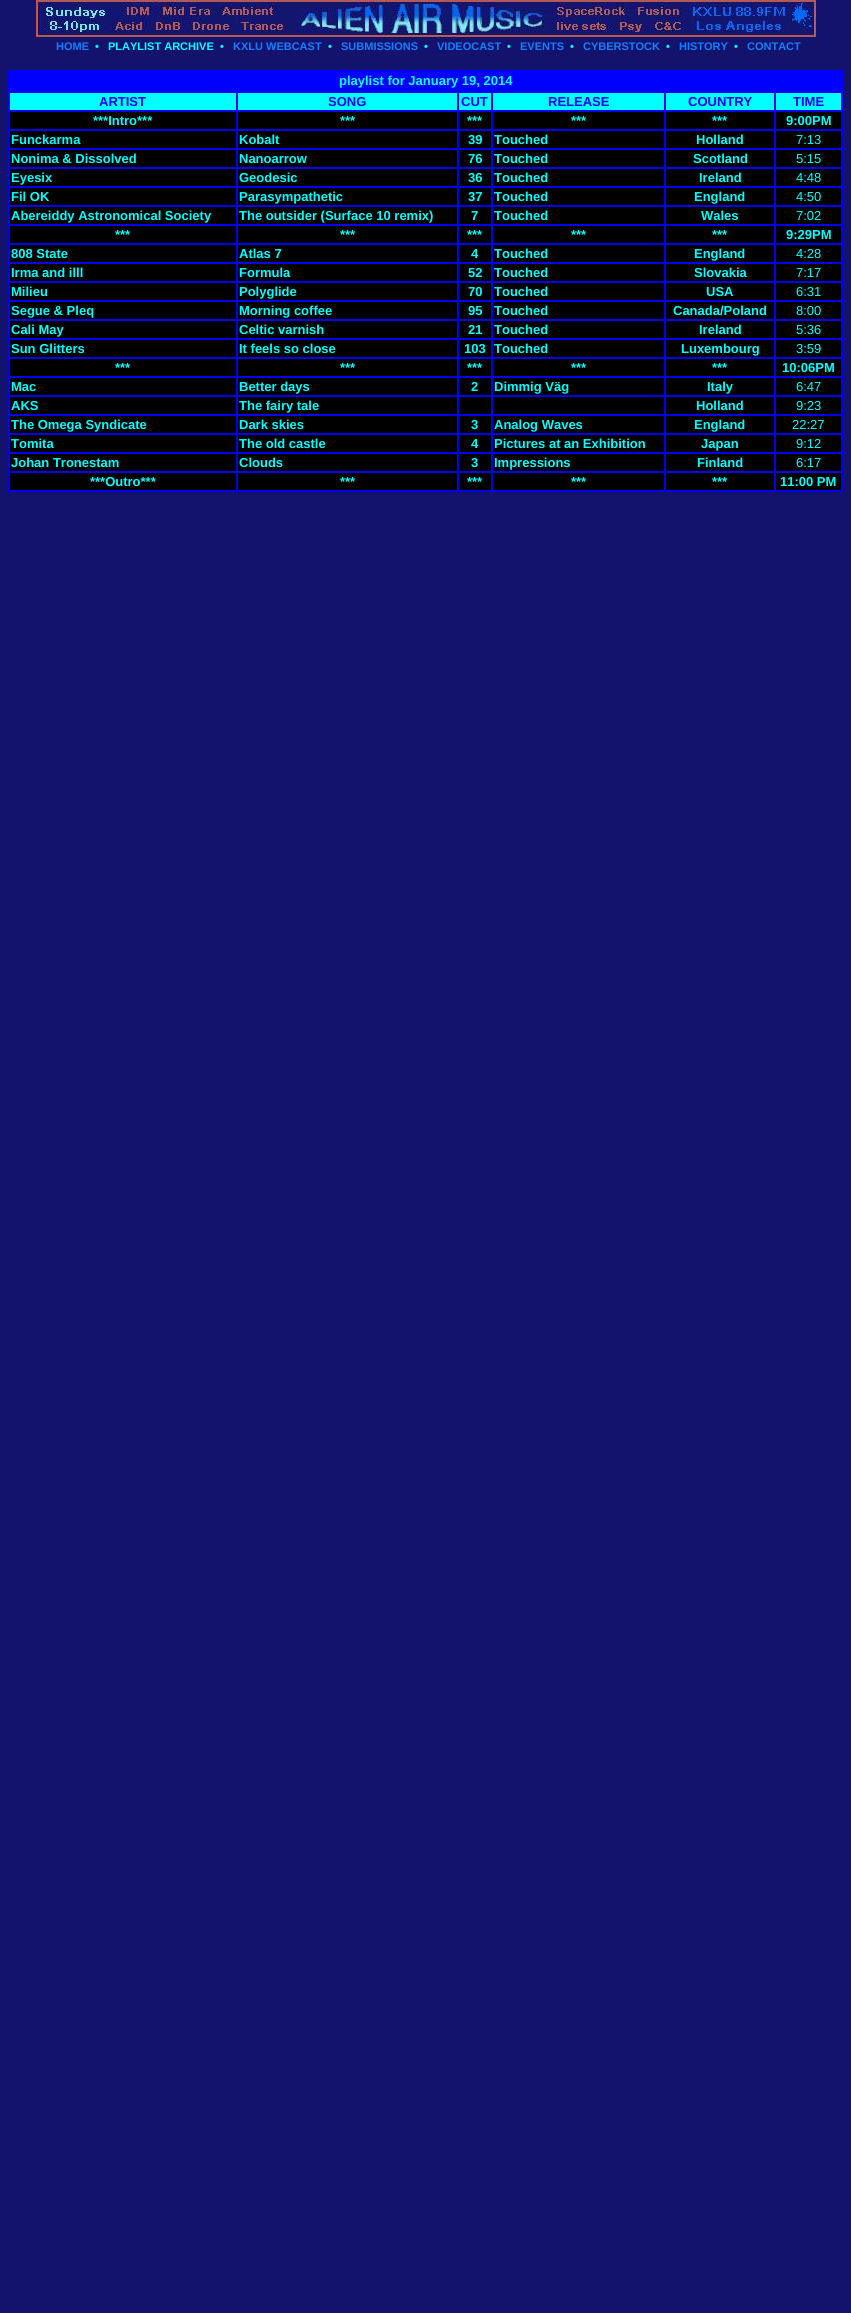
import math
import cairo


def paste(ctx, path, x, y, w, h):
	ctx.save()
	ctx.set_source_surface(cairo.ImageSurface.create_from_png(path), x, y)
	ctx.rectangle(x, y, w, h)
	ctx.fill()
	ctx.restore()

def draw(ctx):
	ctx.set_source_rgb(0.078, 0.078, 0.427)
	ctx.paint()
	paste(ctx, 'media/1.png', 36, 0, 780, 37)
	ctx.select_font_face('Liberation Sans', cairo.FONT_SLANT_NORMAL, cairo.FONT_WEIGHT_BOLD)
	ctx.set_font_size(11)
	ctx.set_source_rgb(0.078, 0.494, 1)
	ctx.move_to(56, 50)
	ctx.show_text('HOME')
	ctx.set_source_rgb(0, 1, 1)
	for x, y, s in [
		(95, 50, '•'),
		(108, 50, 'PLAYLIST ARCHIVE'),
		(220, 50, '•'),
	]:
		ctx.move_to(x, y)
		ctx.show_text(s)
	ctx.set_source_rgb(0.078, 0.494, 1)
	ctx.move_to(233, 50)
	ctx.show_text('KXLU WEBCAST')
	ctx.set_source_rgb(0, 1, 1)
	ctx.move_to(328, 50)
	ctx.show_text('•')
	ctx.set_source_rgb(0.078, 0.494, 1)
	ctx.move_to(341, 50)
	ctx.show_text('SUBMISSIONS')
	ctx.set_source_rgb(0, 1, 1)
	ctx.move_to(424, 50)
	ctx.show_text('•')
	ctx.set_source_rgb(0.078, 0.494, 1)
	ctx.move_to(437, 50)
	ctx.show_text('VIDEOCAST')
	ctx.set_source_rgb(0, 1, 1)
	ctx.move_to(507, 50)
	ctx.show_text('•')
	ctx.set_source_rgb(0.078, 0.494, 1)
	ctx.move_to(520, 50)
	ctx.show_text('EVENTS')
	ctx.set_source_rgb(0, 1, 1)
	ctx.move_to(570, 50)
	ctx.show_text('•')
	ctx.set_source_rgb(0.078, 0.494, 1)
	ctx.move_to(583, 50)
	ctx.show_text('CYBERSTOCK')
	ctx.set_source_rgb(0, 1, 1)
	ctx.move_to(666, 50)
	ctx.show_text('•')
	ctx.set_source_rgb(0.078, 0.494, 1)
	ctx.move_to(679, 50)
	ctx.show_text('HISTORY')
	ctx.set_source_rgb(0, 1, 1)
	ctx.move_to(734, 50)
	ctx.show_text('•')
	ctx.set_source_rgb(0.078, 0.494, 1)
	ctx.move_to(747, 50)
	ctx.show_text('CONTACT')
	ctx.set_source_rgb(0, 0, 1)
	ctx.rectangle(8, 70, 835, 21)
	ctx.fill()
	ctx.set_font_size(13)
	ctx.set_source_rgb(0, 1, 1)
	ctx.move_to(339, 85)
	ctx.show_text('playlist for January 19, 2014')
	ctx.set_source_rgb(0, 0, 0)
	ctx.rectangle(10, 112, 831, 378)
	ctx.fill()
	ctx.rectangle(8.5, 91.5, 834, 400)
	ctx.set_source_rgb(0, 0, 0.933)
	ctx.set_line_width(1)
	ctx.stroke()
	ctx.set_source_rgb(0, 1, 1)
	ctx.rectangle(9.5, 92.5, 227, 18)
	ctx.fill_preserve()
	ctx.set_source_rgb(0, 0, 0.933)
	ctx.stroke()
	ctx.set_source_rgb(0, 0, 1)
	ctx.move_to(99, 106)
	ctx.show_text('ARTIST')
	ctx.set_source_rgb(0, 1, 1)
	ctx.rectangle(237.5, 92.5, 220, 18)
	ctx.fill_preserve()
	ctx.set_source_rgb(0, 0, 0.933)
	ctx.stroke()
	ctx.set_source_rgb(0, 0, 1)
	ctx.move_to(328, 106)
	ctx.show_text('SONG')
	ctx.set_source_rgb(0, 1, 1)
	ctx.rectangle(458.5, 92.5, 33, 18)
	ctx.fill_preserve()
	ctx.set_source_rgb(0, 0, 0.933)
	ctx.stroke()
	ctx.set_source_rgb(0, 0, 1)
	ctx.move_to(461, 106)
	ctx.show_text('CUT')
	ctx.set_source_rgb(0, 1, 1)
	ctx.rectangle(492.5, 92.5, 172, 18)
	ctx.fill_preserve()
	ctx.set_source_rgb(0, 0, 0.933)
	ctx.stroke()
	ctx.set_source_rgb(0, 0, 1)
	ctx.move_to(548, 106)
	ctx.show_text('RELEASE')
	ctx.set_source_rgb(0, 1, 1)
	ctx.rectangle(665.5, 92.5, 109, 18)
	ctx.fill_preserve()
	ctx.set_source_rgb(0, 0, 0.933)
	ctx.stroke()
	ctx.set_source_rgb(0, 0, 1)
	ctx.move_to(688, 106)
	ctx.show_text('COUNTRY')
	ctx.set_source_rgb(0, 1, 1)
	ctx.rectangle(775.5, 92.5, 66, 18)
	ctx.fill_preserve()
	ctx.set_source_rgb(0, 0, 0.933)
	ctx.stroke()
	ctx.set_source_rgb(0, 0, 1)
	ctx.move_to(793, 106)
	ctx.show_text('TIME')
	ctx.rectangle(9.5, 111.5, 227, 18)
	ctx.set_source_rgb(0, 0, 0.933)
	ctx.stroke()
	ctx.set_source_rgb(0, 1, 1)
	ctx.move_to(93, 125)
	ctx.show_text('***Intro***')
	ctx.rectangle(237.5, 111.5, 220, 18)
	ctx.set_source_rgb(0, 0, 0.933)
	ctx.stroke()
	ctx.set_source_rgb(0, 1, 1)
	ctx.move_to(340, 125)
	ctx.show_text('***')
	ctx.rectangle(458.5, 111.5, 33, 18)
	ctx.set_source_rgb(0, 0, 0.933)
	ctx.stroke()
	ctx.set_source_rgb(0, 1, 1)
	ctx.move_to(467, 125)
	ctx.show_text('***')
	ctx.rectangle(492.5, 111.5, 172, 18)
	ctx.set_source_rgb(0, 0, 0.933)
	ctx.stroke()
	ctx.set_source_rgb(0, 1, 1)
	ctx.move_to(571, 125)
	ctx.show_text('***')
	ctx.rectangle(665.5, 111.5, 109, 18)
	ctx.set_source_rgb(0, 0, 0.933)
	ctx.stroke()
	ctx.set_source_rgb(0, 1, 1)
	ctx.move_to(712, 125)
	ctx.show_text('***')
	ctx.rectangle(775.5, 111.5, 66, 18)
	ctx.set_source_rgb(0, 0, 0.933)
	ctx.stroke()
	ctx.set_source_rgb(0, 1, 1)
	ctx.move_to(786, 125)
	ctx.show_text('9:00PM')
	ctx.rectangle(9.5, 130.5, 227, 18)
	ctx.set_source_rgb(0, 0, 0.933)
	ctx.stroke()
	ctx.set_source_rgb(0, 1, 1)
	ctx.move_to(11, 144)
	ctx.show_text('Funckarma')
	ctx.rectangle(237.5, 130.5, 220, 18)
	ctx.set_source_rgb(0, 0, 0.933)
	ctx.stroke()
	ctx.set_source_rgb(0, 1, 1)
	ctx.move_to(239, 144)
	ctx.show_text('Kobalt')
	ctx.rectangle(458.5, 130.5, 33, 18)
	ctx.set_source_rgb(0, 0, 0.933)
	ctx.stroke()
	ctx.set_source_rgb(0, 1, 1)
	ctx.move_to(468, 144)
	ctx.show_text('39')
	ctx.rectangle(492.5, 130.5, 172, 18)
	ctx.set_source_rgb(0, 0, 0.933)
	ctx.stroke()
	ctx.set_source_rgb(0, 1, 1)
	ctx.move_to(494, 144)
	ctx.show_text('Touched')
	ctx.rectangle(665.5, 130.5, 109, 18)
	ctx.set_source_rgb(0, 0, 0.933)
	ctx.stroke()
	ctx.set_source_rgb(0, 1, 1)
	ctx.move_to(696, 144)
	ctx.show_text('Holland')
	ctx.rectangle(775.5, 130.5, 66, 18)
	ctx.set_source_rgb(0, 0, 0.933)
	ctx.stroke()
	ctx.select_font_face('Liberation Sans')
	ctx.set_source_rgb(0, 1, 1)
	ctx.move_to(796, 144)
	ctx.show_text('7:13')
	ctx.rectangle(9.5, 149.5, 227, 18)
	ctx.set_source_rgb(0, 0, 0.933)
	ctx.stroke()
	ctx.select_font_face('Liberation Sans', cairo.FONT_SLANT_NORMAL, cairo.FONT_WEIGHT_BOLD)
	ctx.set_source_rgb(0, 1, 1)
	ctx.move_to(11, 163)
	ctx.show_text('Nonima & Dissolved')
	ctx.rectangle(237.5, 149.5, 220, 18)
	ctx.set_source_rgb(0, 0, 0.933)
	ctx.stroke()
	ctx.set_source_rgb(0, 1, 1)
	ctx.move_to(239, 163)
	ctx.show_text('Nanoarrow')
	ctx.rectangle(458.5, 149.5, 33, 18)
	ctx.set_source_rgb(0, 0, 0.933)
	ctx.stroke()
	ctx.set_source_rgb(0, 1, 1)
	ctx.move_to(468, 163)
	ctx.show_text('76')
	ctx.rectangle(492.5, 149.5, 172, 18)
	ctx.set_source_rgb(0, 0, 0.933)
	ctx.stroke()
	ctx.set_source_rgb(0, 1, 1)
	ctx.move_to(494, 163)
	ctx.show_text('Touched')
	ctx.rectangle(665.5, 149.5, 109, 18)
	ctx.set_source_rgb(0, 0, 0.933)
	ctx.stroke()
	ctx.set_source_rgb(0, 1, 1)
	ctx.move_to(693, 163)
	ctx.show_text('Scotland')
	ctx.rectangle(775.5, 149.5, 66, 18)
	ctx.set_source_rgb(0, 0, 0.933)
	ctx.stroke()
	ctx.select_font_face('Liberation Sans')
	ctx.set_source_rgb(0, 1, 1)
	ctx.move_to(796, 163)
	ctx.show_text('5:15')
	ctx.rectangle(9.5, 168.5, 227, 18)
	ctx.set_source_rgb(0, 0, 0.933)
	ctx.stroke()
	ctx.select_font_face('Liberation Sans', cairo.FONT_SLANT_NORMAL, cairo.FONT_WEIGHT_BOLD)
	ctx.set_source_rgb(0, 1, 1)
	ctx.move_to(11, 182)
	ctx.show_text('Eyesix')
	ctx.rectangle(237.5, 168.5, 220, 18)
	ctx.set_source_rgb(0, 0, 0.933)
	ctx.stroke()
	ctx.set_source_rgb(0, 1, 1)
	ctx.move_to(239, 182)
	ctx.show_text('Geodesic')
	ctx.rectangle(458.5, 168.5, 33, 18)
	ctx.set_source_rgb(0, 0, 0.933)
	ctx.stroke()
	ctx.set_source_rgb(0, 1, 1)
	ctx.move_to(468, 182)
	ctx.show_text('36')
	ctx.rectangle(492.5, 168.5, 172, 18)
	ctx.set_source_rgb(0, 0, 0.933)
	ctx.stroke()
	ctx.set_source_rgb(0, 1, 1)
	ctx.move_to(494, 182)
	ctx.show_text('Touched')
	ctx.rectangle(665.5, 168.5, 109, 18)
	ctx.set_source_rgb(0, 0, 0.933)
	ctx.stroke()
	ctx.set_source_rgb(0, 1, 1)
	ctx.move_to(699, 182)
	ctx.show_text('Ireland')
	ctx.rectangle(775.5, 168.5, 66, 18)
	ctx.set_source_rgb(0, 0, 0.933)
	ctx.stroke()
	ctx.select_font_face('Liberation Sans')
	ctx.set_source_rgb(0, 1, 1)
	ctx.move_to(796, 182)
	ctx.show_text('4:48')
	ctx.rectangle(9.5, 187.5, 227, 18)
	ctx.set_source_rgb(0, 0, 0.933)
	ctx.stroke()
	ctx.select_font_face('Liberation Sans', cairo.FONT_SLANT_NORMAL, cairo.FONT_WEIGHT_BOLD)
	ctx.set_source_rgb(0, 1, 1)
	ctx.move_to(11, 201)
	ctx.show_text('Fil OK')
	ctx.rectangle(237.5, 187.5, 220, 18)
	ctx.set_source_rgb(0, 0, 0.933)
	ctx.stroke()
	ctx.set_source_rgb(0, 1, 1)
	ctx.move_to(239, 201)
	ctx.show_text('Parasympathetic')
	ctx.rectangle(458.5, 187.5, 33, 18)
	ctx.set_source_rgb(0, 0, 0.933)
	ctx.stroke()
	ctx.set_source_rgb(0, 1, 1)
	ctx.move_to(468, 201)
	ctx.show_text('37')
	ctx.rectangle(492.5, 187.5, 172, 18)
	ctx.set_source_rgb(0, 0, 0.933)
	ctx.stroke()
	ctx.set_source_rgb(0, 1, 1)
	ctx.move_to(494, 201)
	ctx.show_text('Touched')
	ctx.rectangle(665.5, 187.5, 109, 18)
	ctx.set_source_rgb(0, 0, 0.933)
	ctx.stroke()
	ctx.set_source_rgb(0, 1, 1)
	ctx.move_to(694, 201)
	ctx.show_text('England')
	ctx.rectangle(775.5, 187.5, 66, 18)
	ctx.set_source_rgb(0, 0, 0.933)
	ctx.stroke()
	ctx.select_font_face('Liberation Sans')
	ctx.set_source_rgb(0, 1, 1)
	ctx.move_to(796, 201)
	ctx.show_text('4:50')
	ctx.rectangle(9.5, 206.5, 227, 18)
	ctx.set_source_rgb(0, 0, 0.933)
	ctx.stroke()
	ctx.select_font_face('Liberation Sans', cairo.FONT_SLANT_NORMAL, cairo.FONT_WEIGHT_BOLD)
	ctx.set_source_rgb(0, 1, 1)
	ctx.move_to(11, 220)
	ctx.show_text('Abereiddy Astronomical Society')
	ctx.rectangle(237.5, 206.5, 220, 18)
	ctx.set_source_rgb(0, 0, 0.933)
	ctx.stroke()
	ctx.set_source_rgb(0, 1, 1)
	ctx.move_to(239, 220)
	ctx.show_text('The outsider (Surface 10 remix)')
	ctx.rectangle(458.5, 206.5, 33, 18)
	ctx.set_source_rgb(0, 0, 0.933)
	ctx.stroke()
	ctx.set_source_rgb(0, 1, 1)
	ctx.move_to(471, 220)
	ctx.show_text('7')
	ctx.rectangle(492.5, 206.5, 172, 18)
	ctx.set_source_rgb(0, 0, 0.933)
	ctx.stroke()
	ctx.set_source_rgb(0, 1, 1)
	ctx.move_to(494, 220)
	ctx.show_text('Touched')
	ctx.rectangle(665.5, 206.5, 109, 18)
	ctx.set_source_rgb(0, 0, 0.933)
	ctx.stroke()
	ctx.set_source_rgb(0, 1, 1)
	ctx.move_to(701, 220)
	ctx.show_text('Wales')
	ctx.rectangle(775.5, 206.5, 66, 18)
	ctx.set_source_rgb(0, 0, 0.933)
	ctx.stroke()
	ctx.select_font_face('Liberation Sans')
	ctx.set_source_rgb(0, 1, 1)
	ctx.move_to(796, 220)
	ctx.show_text('7:02')
	ctx.rectangle(9.5, 225.5, 227, 18)
	ctx.set_source_rgb(0, 0, 0.933)
	ctx.stroke()
	ctx.select_font_face('Liberation Sans', cairo.FONT_SLANT_NORMAL, cairo.FONT_WEIGHT_BOLD)
	ctx.set_source_rgb(0, 1, 1)
	ctx.move_to(115, 239)
	ctx.show_text('***')
	ctx.rectangle(237.5, 225.5, 220, 18)
	ctx.set_source_rgb(0, 0, 0.933)
	ctx.stroke()
	ctx.set_source_rgb(0, 1, 1)
	ctx.move_to(340, 239)
	ctx.show_text('***')
	ctx.rectangle(458.5, 225.5, 33, 18)
	ctx.set_source_rgb(0, 0, 0.933)
	ctx.stroke()
	ctx.set_source_rgb(0, 1, 1)
	ctx.move_to(467, 239)
	ctx.show_text('***')
	ctx.rectangle(492.5, 225.5, 172, 18)
	ctx.set_source_rgb(0, 0, 0.933)
	ctx.stroke()
	ctx.set_source_rgb(0, 1, 1)
	ctx.move_to(571, 239)
	ctx.show_text('***')
	ctx.rectangle(665.5, 225.5, 109, 18)
	ctx.set_source_rgb(0, 0, 0.933)
	ctx.stroke()
	ctx.set_source_rgb(0, 1, 1)
	ctx.move_to(712, 239)
	ctx.show_text('***')
	ctx.rectangle(775.5, 225.5, 66, 18)
	ctx.set_source_rgb(0, 0, 0.933)
	ctx.stroke()
	ctx.set_source_rgb(0, 1, 1)
	ctx.move_to(786, 239)
	ctx.show_text('9:29PM')
	ctx.rectangle(9.5, 244.5, 227, 18)
	ctx.set_source_rgb(0, 0, 0.933)
	ctx.stroke()
	ctx.set_source_rgb(0, 1, 1)
	ctx.move_to(11, 258)
	ctx.show_text('808 State')
	ctx.rectangle(237.5, 244.5, 220, 18)
	ctx.set_source_rgb(0, 0, 0.933)
	ctx.stroke()
	ctx.set_source_rgb(0, 1, 1)
	ctx.move_to(239, 258)
	ctx.show_text('Atlas 7')
	ctx.rectangle(458.5, 244.5, 33, 18)
	ctx.set_source_rgb(0, 0, 0.933)
	ctx.stroke()
	ctx.set_source_rgb(0, 1, 1)
	ctx.move_to(471, 258)
	ctx.show_text('4')
	ctx.rectangle(492.5, 244.5, 172, 18)
	ctx.set_source_rgb(0, 0, 0.933)
	ctx.stroke()
	ctx.set_source_rgb(0, 1, 1)
	ctx.move_to(494, 258)
	ctx.show_text('Touched')
	ctx.rectangle(665.5, 244.5, 109, 18)
	ctx.set_source_rgb(0, 0, 0.933)
	ctx.stroke()
	ctx.set_source_rgb(0, 1, 1)
	ctx.move_to(694, 258)
	ctx.show_text('England')
	ctx.rectangle(775.5, 244.5, 66, 18)
	ctx.set_source_rgb(0, 0, 0.933)
	ctx.stroke()
	ctx.select_font_face('Liberation Sans')
	ctx.set_source_rgb(0, 1, 1)
	ctx.move_to(796, 258)
	ctx.show_text('4:28')
	ctx.rectangle(9.5, 263.5, 227, 18)
	ctx.set_source_rgb(0, 0, 0.933)
	ctx.stroke()
	ctx.select_font_face('Liberation Sans', cairo.FONT_SLANT_NORMAL, cairo.FONT_WEIGHT_BOLD)
	ctx.set_source_rgb(0, 1, 1)
	ctx.move_to(11, 277)
	ctx.show_text('Irma and illl')
	ctx.rectangle(237.5, 263.5, 220, 18)
	ctx.set_source_rgb(0, 0, 0.933)
	ctx.stroke()
	ctx.set_source_rgb(0, 1, 1)
	ctx.move_to(239, 277)
	ctx.show_text('Formula')
	ctx.rectangle(458.5, 263.5, 33, 18)
	ctx.set_source_rgb(0, 0, 0.933)
	ctx.stroke()
	ctx.set_source_rgb(0, 1, 1)
	ctx.move_to(468, 277)
	ctx.show_text('52')
	ctx.rectangle(492.5, 263.5, 172, 18)
	ctx.set_source_rgb(0, 0, 0.933)
	ctx.stroke()
	ctx.set_source_rgb(0, 1, 1)
	ctx.move_to(494, 277)
	ctx.show_text('Touched')
	ctx.rectangle(665.5, 263.5, 109, 18)
	ctx.set_source_rgb(0, 0, 0.933)
	ctx.stroke()
	ctx.set_source_rgb(0, 1, 1)
	ctx.move_to(694, 277)
	ctx.show_text('Slovakia')
	ctx.rectangle(775.5, 263.5, 66, 18)
	ctx.set_source_rgb(0, 0, 0.933)
	ctx.stroke()
	ctx.select_font_face('Liberation Sans')
	ctx.set_source_rgb(0, 1, 1)
	ctx.move_to(796, 277)
	ctx.show_text('7:17')
	ctx.rectangle(9.5, 282.5, 227, 18)
	ctx.set_source_rgb(0, 0, 0.933)
	ctx.stroke()
	ctx.select_font_face('Liberation Sans', cairo.FONT_SLANT_NORMAL, cairo.FONT_WEIGHT_BOLD)
	ctx.set_source_rgb(0, 1, 1)
	ctx.move_to(11, 296)
	ctx.show_text('Milieu')
	ctx.rectangle(237.5, 282.5, 220, 18)
	ctx.set_source_rgb(0, 0, 0.933)
	ctx.stroke()
	ctx.set_source_rgb(0, 1, 1)
	ctx.move_to(239, 296)
	ctx.show_text('Polyglide')
	ctx.rectangle(458.5, 282.5, 33, 18)
	ctx.set_source_rgb(0, 0, 0.933)
	ctx.stroke()
	ctx.set_source_rgb(0, 1, 1)
	ctx.move_to(468, 296)
	ctx.show_text('70')
	ctx.rectangle(492.5, 282.5, 172, 18)
	ctx.set_source_rgb(0, 0, 0.933)
	ctx.stroke()
	ctx.set_source_rgb(0, 1, 1)
	ctx.move_to(494, 296)
	ctx.show_text('Touched')
	ctx.rectangle(665.5, 282.5, 109, 18)
	ctx.set_source_rgb(0, 0, 0.933)
	ctx.stroke()
	ctx.set_source_rgb(0, 1, 1)
	ctx.move_to(706, 296)
	ctx.show_text('USA')
	ctx.rectangle(775.5, 282.5, 66, 18)
	ctx.set_source_rgb(0, 0, 0.933)
	ctx.stroke()
	ctx.select_font_face('Liberation Sans')
	ctx.set_source_rgb(0, 1, 1)
	ctx.move_to(796, 296)
	ctx.show_text('6:31')
	ctx.rectangle(9.5, 301.5, 227, 18)
	ctx.set_source_rgb(0, 0, 0.933)
	ctx.stroke()
	ctx.select_font_face('Liberation Sans', cairo.FONT_SLANT_NORMAL, cairo.FONT_WEIGHT_BOLD)
	ctx.set_source_rgb(0, 1, 1)
	ctx.move_to(11, 315)
	ctx.show_text('Segue & Pleq')
	ctx.rectangle(237.5, 301.5, 220, 18)
	ctx.set_source_rgb(0, 0, 0.933)
	ctx.stroke()
	ctx.set_source_rgb(0, 1, 1)
	ctx.move_to(239, 315)
	ctx.show_text('Morning coffee')
	ctx.rectangle(458.5, 301.5, 33, 18)
	ctx.set_source_rgb(0, 0, 0.933)
	ctx.stroke()
	ctx.set_source_rgb(0, 1, 1)
	ctx.move_to(468, 315)
	ctx.show_text('95')
	ctx.rectangle(492.5, 301.5, 172, 18)
	ctx.set_source_rgb(0, 0, 0.933)
	ctx.stroke()
	ctx.set_source_rgb(0, 1, 1)
	ctx.move_to(494, 315)
	ctx.show_text('Touched')
	ctx.rectangle(665.5, 301.5, 109, 18)
	ctx.set_source_rgb(0, 0, 0.933)
	ctx.stroke()
	ctx.set_source_rgb(0, 1, 1)
	ctx.move_to(673, 315)
	ctx.show_text('Canada/Poland')
	ctx.rectangle(775.5, 301.5, 66, 18)
	ctx.set_source_rgb(0, 0, 0.933)
	ctx.stroke()
	ctx.select_font_face('Liberation Sans')
	ctx.set_source_rgb(0, 1, 1)
	ctx.move_to(796, 315)
	ctx.show_text('8:00')
	ctx.rectangle(9.5, 320.5, 227, 18)
	ctx.set_source_rgb(0, 0, 0.933)
	ctx.stroke()
	ctx.select_font_face('Liberation Sans', cairo.FONT_SLANT_NORMAL, cairo.FONT_WEIGHT_BOLD)
	ctx.set_source_rgb(0, 1, 1)
	ctx.move_to(11, 334)
	ctx.show_text('Cali May')
	ctx.rectangle(237.5, 320.5, 220, 18)
	ctx.set_source_rgb(0, 0, 0.933)
	ctx.stroke()
	ctx.set_source_rgb(0, 1, 1)
	ctx.move_to(239, 334)
	ctx.show_text('Celtic varnish')
	ctx.rectangle(458.5, 320.5, 33, 18)
	ctx.set_source_rgb(0, 0, 0.933)
	ctx.stroke()
	ctx.set_source_rgb(0, 1, 1)
	ctx.move_to(468, 334)
	ctx.show_text('21')
	ctx.rectangle(492.5, 320.5, 172, 18)
	ctx.set_source_rgb(0, 0, 0.933)
	ctx.stroke()
	ctx.set_source_rgb(0, 1, 1)
	ctx.move_to(494, 334)
	ctx.show_text('Touched')
	ctx.rectangle(665.5, 320.5, 109, 18)
	ctx.set_source_rgb(0, 0, 0.933)
	ctx.stroke()
	ctx.set_source_rgb(0, 1, 1)
	ctx.move_to(699, 334)
	ctx.show_text('Ireland')
	ctx.rectangle(775.5, 320.5, 66, 18)
	ctx.set_source_rgb(0, 0, 0.933)
	ctx.stroke()
	ctx.select_font_face('Liberation Sans')
	ctx.set_source_rgb(0, 1, 1)
	ctx.move_to(796, 334)
	ctx.show_text('5:36')
	ctx.rectangle(9.5, 339.5, 227, 18)
	ctx.set_source_rgb(0, 0, 0.933)
	ctx.stroke()
	ctx.select_font_face('Liberation Sans', cairo.FONT_SLANT_NORMAL, cairo.FONT_WEIGHT_BOLD)
	ctx.set_source_rgb(0, 1, 1)
	ctx.move_to(11, 353)
	ctx.show_text('Sun Glitters')
	ctx.rectangle(237.5, 339.5, 220, 18)
	ctx.set_source_rgb(0, 0, 0.933)
	ctx.stroke()
	ctx.set_source_rgb(0, 1, 1)
	ctx.move_to(239, 353)
	ctx.show_text('It feels so close')
	ctx.rectangle(458.5, 339.5, 33, 18)
	ctx.set_source_rgb(0, 0, 0.933)
	ctx.stroke()
	ctx.set_source_rgb(0, 1, 1)
	ctx.move_to(464, 353)
	ctx.show_text('103')
	ctx.rectangle(492.5, 339.5, 172, 18)
	ctx.set_source_rgb(0, 0, 0.933)
	ctx.stroke()
	ctx.set_source_rgb(0, 1, 1)
	ctx.move_to(494, 353)
	ctx.show_text('Touched')
	ctx.rectangle(665.5, 339.5, 109, 18)
	ctx.set_source_rgb(0, 0, 0.933)
	ctx.stroke()
	ctx.set_source_rgb(0, 1, 1)
	ctx.move_to(681, 353)
	ctx.show_text('Luxembourg')
	ctx.rectangle(775.5, 339.5, 66, 18)
	ctx.set_source_rgb(0, 0, 0.933)
	ctx.stroke()
	ctx.select_font_face('Liberation Sans')
	ctx.set_source_rgb(0, 1, 1)
	ctx.move_to(796, 353)
	ctx.show_text('3:59')
	ctx.rectangle(9.5, 358.5, 227, 18)
	ctx.set_source_rgb(0, 0, 0.933)
	ctx.stroke()
	ctx.select_font_face('Liberation Sans', cairo.FONT_SLANT_NORMAL, cairo.FONT_WEIGHT_BOLD)
	ctx.set_source_rgb(0, 1, 1)
	ctx.move_to(115, 372)
	ctx.show_text('***')
	ctx.rectangle(237.5, 358.5, 220, 18)
	ctx.set_source_rgb(0, 0, 0.933)
	ctx.stroke()
	ctx.set_source_rgb(0, 1, 1)
	ctx.move_to(340, 372)
	ctx.show_text('***')
	ctx.rectangle(458.5, 358.5, 33, 18)
	ctx.set_source_rgb(0, 0, 0.933)
	ctx.stroke()
	ctx.set_source_rgb(0, 1, 1)
	ctx.move_to(467, 372)
	ctx.show_text('***')
	ctx.rectangle(492.5, 358.5, 172, 18)
	ctx.set_source_rgb(0, 0, 0.933)
	ctx.stroke()
	ctx.set_source_rgb(0, 1, 1)
	ctx.move_to(571, 372)
	ctx.show_text('***')
	ctx.rectangle(665.5, 358.5, 109, 18)
	ctx.set_source_rgb(0, 0, 0.933)
	ctx.stroke()
	ctx.set_source_rgb(0, 1, 1)
	ctx.move_to(712, 372)
	ctx.show_text('***')
	ctx.rectangle(775.5, 358.5, 66, 18)
	ctx.set_source_rgb(0, 0, 0.933)
	ctx.stroke()
	ctx.set_source_rgb(0, 1, 1)
	ctx.move_to(782, 372)
	ctx.show_text('10:06PM')
	ctx.rectangle(9.5, 377.5, 227, 18)
	ctx.set_source_rgb(0, 0, 0.933)
	ctx.stroke()
	ctx.set_source_rgb(0, 1, 1)
	ctx.move_to(11, 391)
	ctx.show_text('Mac')
	ctx.rectangle(237.5, 377.5, 220, 18)
	ctx.set_source_rgb(0, 0, 0.933)
	ctx.stroke()
	ctx.set_source_rgb(0, 1, 1)
	ctx.move_to(239, 391)
	ctx.show_text('Better days')
	ctx.rectangle(458.5, 377.5, 33, 18)
	ctx.set_source_rgb(0, 0, 0.933)
	ctx.stroke()
	ctx.set_source_rgb(0, 1, 1)
	ctx.move_to(471, 391)
	ctx.show_text('2')
	ctx.rectangle(492.5, 377.5, 172, 18)
	ctx.set_source_rgb(0, 0, 0.933)
	ctx.stroke()
	ctx.set_source_rgb(0, 1, 1)
	ctx.move_to(494, 391)
	ctx.show_text('Dimmig Väg')
	ctx.rectangle(665.5, 377.5, 109, 18)
	ctx.set_source_rgb(0, 0, 0.933)
	ctx.stroke()
	ctx.set_source_rgb(0, 1, 1)
	ctx.move_to(707, 391)
	ctx.show_text('Italy')
	ctx.rectangle(775.5, 377.5, 66, 18)
	ctx.set_source_rgb(0, 0, 0.933)
	ctx.stroke()
	ctx.select_font_face('Liberation Sans')
	ctx.set_source_rgb(0, 1, 1)
	ctx.move_to(796, 391)
	ctx.show_text('6:47')
	ctx.rectangle(9.5, 396.5, 227, 18)
	ctx.set_source_rgb(0, 0, 0.933)
	ctx.stroke()
	ctx.select_font_face('Liberation Sans', cairo.FONT_SLANT_NORMAL, cairo.FONT_WEIGHT_BOLD)
	ctx.set_source_rgb(0, 1, 1)
	ctx.move_to(11, 410)
	ctx.show_text('AKS')
	ctx.rectangle(237.5, 396.5, 220, 18)
	ctx.set_source_rgb(0, 0, 0.933)
	ctx.stroke()
	ctx.set_source_rgb(0, 1, 1)
	ctx.move_to(239, 410)
	ctx.show_text('The fairy tale')
	ctx.rectangle(458.5, 396.5, 33, 18)
	ctx.set_source_rgb(0, 0, 0.933)
	ctx.stroke()
	ctx.rectangle(492.5, 396.5, 172, 18)
	ctx.stroke()
	ctx.rectangle(665.5, 396.5, 109, 18)
	ctx.stroke()
	ctx.set_source_rgb(0, 1, 1)
	ctx.move_to(696, 410)
	ctx.show_text('Holland')
	ctx.rectangle(775.5, 396.5, 66, 18)
	ctx.set_source_rgb(0, 0, 0.933)
	ctx.stroke()
	ctx.select_font_face('Liberation Sans')
	ctx.set_source_rgb(0, 1, 1)
	ctx.move_to(796, 410)
	ctx.show_text('9:23')
	ctx.rectangle(9.5, 415.5, 227, 18)
	ctx.set_source_rgb(0, 0, 0.933)
	ctx.stroke()
	ctx.select_font_face('Liberation Sans', cairo.FONT_SLANT_NORMAL, cairo.FONT_WEIGHT_BOLD)
	ctx.set_source_rgb(0, 1, 1)
	ctx.move_to(11, 429)
	ctx.show_text('The Omega Syndicate')
	ctx.rectangle(237.5, 415.5, 220, 18)
	ctx.set_source_rgb(0, 0, 0.933)
	ctx.stroke()
	ctx.set_source_rgb(0, 1, 1)
	ctx.move_to(239, 429)
	ctx.show_text('Dark skies')
	ctx.rectangle(458.5, 415.5, 33, 18)
	ctx.set_source_rgb(0, 0, 0.933)
	ctx.stroke()
	ctx.set_source_rgb(0, 1, 1)
	ctx.move_to(471, 429)
	ctx.show_text('3')
	ctx.rectangle(492.5, 415.5, 172, 18)
	ctx.set_source_rgb(0, 0, 0.933)
	ctx.stroke()
	ctx.set_source_rgb(0, 1, 1)
	ctx.move_to(494, 429)
	ctx.show_text('Analog Waves')
	ctx.rectangle(665.5, 415.5, 109, 18)
	ctx.set_source_rgb(0, 0, 0.933)
	ctx.stroke()
	ctx.set_source_rgb(0, 1, 1)
	ctx.move_to(694, 429)
	ctx.show_text('England')
	ctx.rectangle(775.5, 415.5, 66, 18)
	ctx.set_source_rgb(0, 0, 0.933)
	ctx.stroke()
	ctx.select_font_face('Liberation Sans')
	ctx.set_source_rgb(0, 1, 1)
	ctx.move_to(792, 429)
	ctx.show_text('22:27')
	ctx.rectangle(9.5, 434.5, 227, 18)
	ctx.set_source_rgb(0, 0, 0.933)
	ctx.stroke()
	ctx.select_font_face('Liberation Sans', cairo.FONT_SLANT_NORMAL, cairo.FONT_WEIGHT_BOLD)
	ctx.set_source_rgb(0, 1, 1)
	ctx.move_to(11, 448)
	ctx.show_text('Tomita')
	ctx.rectangle(237.5, 434.5, 220, 18)
	ctx.set_source_rgb(0, 0, 0.933)
	ctx.stroke()
	ctx.set_source_rgb(0, 1, 1)
	ctx.move_to(239, 448)
	ctx.show_text('The old castle')
	ctx.rectangle(458.5, 434.5, 33, 18)
	ctx.set_source_rgb(0, 0, 0.933)
	ctx.stroke()
	ctx.set_source_rgb(0, 1, 1)
	ctx.move_to(471, 448)
	ctx.show_text('4')
	ctx.rectangle(492.5, 434.5, 172, 18)
	ctx.set_source_rgb(0, 0, 0.933)
	ctx.stroke()
	ctx.set_source_rgb(0, 1, 1)
	ctx.move_to(494, 448)
	ctx.show_text('Pictures at an Exhibition')
	ctx.rectangle(665.5, 434.5, 109, 18)
	ctx.set_source_rgb(0, 0, 0.933)
	ctx.stroke()
	ctx.set_source_rgb(0, 1, 1)
	ctx.move_to(701, 448)
	ctx.show_text('Japan')
	ctx.rectangle(775.5, 434.5, 66, 18)
	ctx.set_source_rgb(0, 0, 0.933)
	ctx.stroke()
	ctx.select_font_face('Liberation Sans')
	ctx.set_source_rgb(0, 1, 1)
	ctx.move_to(796, 448)
	ctx.show_text('9:12')
	ctx.rectangle(9.5, 453.5, 227, 18)
	ctx.set_source_rgb(0, 0, 0.933)
	ctx.stroke()
	ctx.select_font_face('Liberation Sans', cairo.FONT_SLANT_NORMAL, cairo.FONT_WEIGHT_BOLD)
	ctx.set_source_rgb(0, 1, 1)
	ctx.move_to(11, 467)
	ctx.show_text('Johan Tronestam')
	ctx.rectangle(237.5, 453.5, 220, 18)
	ctx.set_source_rgb(0, 0, 0.933)
	ctx.stroke()
	ctx.set_source_rgb(0, 1, 1)
	ctx.move_to(239, 467)
	ctx.show_text('Clouds')
	ctx.rectangle(458.5, 453.5, 33, 18)
	ctx.set_source_rgb(0, 0, 0.933)
	ctx.stroke()
	ctx.set_source_rgb(0, 1, 1)
	ctx.move_to(471, 467)
	ctx.show_text('3')
	ctx.rectangle(492.5, 453.5, 172, 18)
	ctx.set_source_rgb(0, 0, 0.933)
	ctx.stroke()
	ctx.set_source_rgb(0, 1, 1)
	ctx.move_to(494, 467)
	ctx.show_text('Impressions')
	ctx.rectangle(665.5, 453.5, 109, 18)
	ctx.set_source_rgb(0, 0, 0.933)
	ctx.stroke()
	ctx.set_source_rgb(0, 1, 1)
	ctx.move_to(697, 467)
	ctx.show_text('Finland')
	ctx.rectangle(775.5, 453.5, 66, 18)
	ctx.set_source_rgb(0, 0, 0.933)
	ctx.stroke()
	ctx.select_font_face('Liberation Sans')
	ctx.set_source_rgb(0, 1, 1)
	ctx.move_to(796, 467)
	ctx.show_text('6:17')
	ctx.rectangle(9.5, 472.5, 227, 18)
	ctx.set_source_rgb(0, 0, 0.933)
	ctx.stroke()
	ctx.select_font_face('Liberation Sans', cairo.FONT_SLANT_NORMAL, cairo.FONT_WEIGHT_BOLD)
	ctx.set_source_rgb(0, 1, 1)
	ctx.move_to(90, 486)
	ctx.show_text('***Outro***')
	ctx.rectangle(237.5, 472.5, 220, 18)
	ctx.set_source_rgb(0, 0, 0.933)
	ctx.stroke()
	ctx.set_source_rgb(0, 1, 1)
	ctx.move_to(340, 486)
	ctx.show_text('***')
	ctx.rectangle(458.5, 472.5, 33, 18)
	ctx.set_source_rgb(0, 0, 0.933)
	ctx.stroke()
	ctx.set_source_rgb(0, 1, 1)
	ctx.move_to(467, 486)
	ctx.show_text('***')
	ctx.rectangle(492.5, 472.5, 172, 18)
	ctx.set_source_rgb(0, 0, 0.933)
	ctx.stroke()
	ctx.set_source_rgb(0, 1, 1)
	ctx.move_to(571, 486)
	ctx.show_text('***')
	ctx.rectangle(665.5, 472.5, 109, 18)
	ctx.set_source_rgb(0, 0, 0.933)
	ctx.stroke()
	ctx.set_source_rgb(0, 1, 1)
	ctx.move_to(712, 486)
	ctx.show_text('***')
	ctx.rectangle(775.5, 472.5, 66, 18)
	ctx.set_source_rgb(0, 0, 0.933)
	ctx.stroke()
	ctx.set_source_rgb(0, 1, 1)
	ctx.move_to(780, 486)
	ctx.show_text('11:00 PM')


surface = cairo.ImageSurface(cairo.FORMAT_RGB24, 851, 2313)
ctx = cairo.Context(surface)
options = cairo.FontOptions()
options.set_hint_metrics(cairo.HINT_METRICS_OFF)
options.set_hint_style(cairo.HINT_STYLE_NONE)
ctx.set_font_options(options)
ctx.set_miter_limit(4)
draw(ctx)
surface.write_to_png('image.png')
